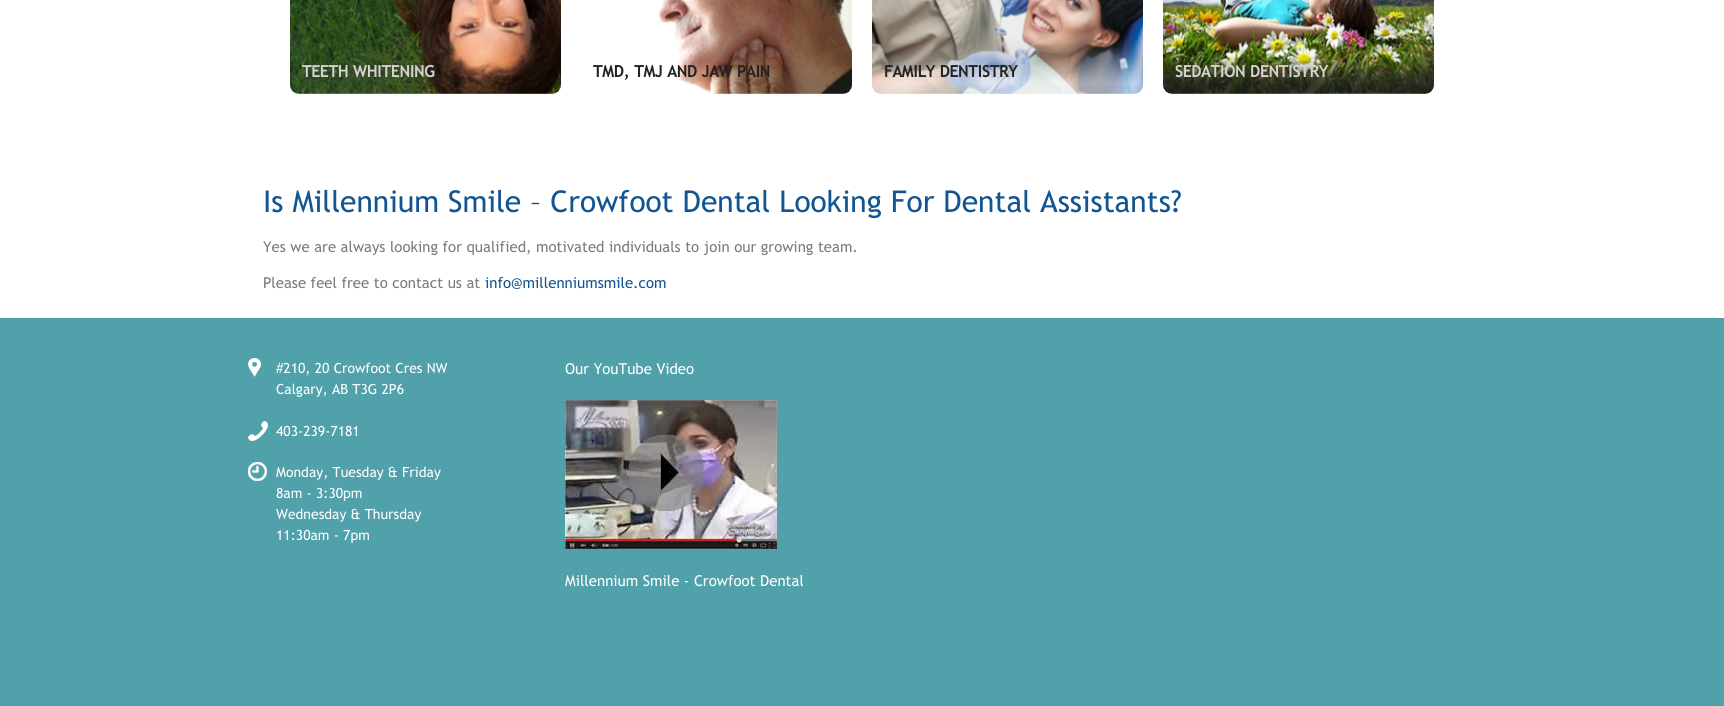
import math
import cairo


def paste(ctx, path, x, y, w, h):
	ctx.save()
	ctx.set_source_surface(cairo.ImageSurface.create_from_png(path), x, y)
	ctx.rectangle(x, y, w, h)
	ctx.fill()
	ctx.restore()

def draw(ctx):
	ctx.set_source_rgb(1, 1, 1)
	ctx.paint()
	paste(ctx, 'media/1.png', 290, 0, 271, 94)
	ctx.select_font_face('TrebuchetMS', cairo.FONT_SLANT_NORMAL, cairo.FONT_WEIGHT_BOLD)
	ctx.set_font_size(16)
	ctx.set_source_rgb(0.839, 0.824, 0.827)
	ctx.move_to(302, 77)
	ctx.show_text('TEETH WHITENING')
	paste(ctx, 'media/2.png', 658, 0, 194, 94)
	ctx.set_source_rgb(0.133, 0.133, 0.133)
	ctx.move_to(593, 77)
	ctx.show_text('TMD, TMJ AND JAW PAIN')
	paste(ctx, 'media/3.png', 872, 0, 271, 94)
	ctx.move_to(884, 77)
	ctx.show_text('FAMILY DENTISTRY')
	paste(ctx, 'media/4.png', 1163, 0, 271, 94)
	ctx.set_source_rgb(0.839, 0.824, 0.827)
	ctx.move_to(1175, 77)
	ctx.show_text('SEDATION DENTISTRY')
	ctx.select_font_face('TrebuchetMS')
	ctx.set_font_size(30)
	ctx.set_source_rgb(0.078, 0.333, 0.573)
	ctx.move_to(263, 212)
	ctx.show_text('Is Millennium Smile – Crowfoot Dental Looking For Dental Assistants?')
	ctx.set_font_size(15)
	ctx.set_source_rgb(0.486, 0.486, 0.486)
	ctx.move_to(263, 252)
	ctx.show_text('Yes we are always looking for qualified, motivated individuals to join our growing team.')
	ctx.move_to(263, 288)
	ctx.show_text('Please feel free to contact us at')
	ctx.set_source_rgb(0.078, 0.333, 0.573)
	ctx.move_to(485, 288)
	ctx.show_text('info@millenniumsmile.com')
	ctx.set_source_rgb(0.318, 0.631, 0.671)
	ctx.rectangle(0, 318, 1724, 388)
	ctx.fill()
	paste(ctx, 'media/5.png', 248, 358, 13, 19)
	ctx.set_font_size(14)
	ctx.set_source_rgb(1, 1, 1)
	ctx.move_to(276, 373)
	ctx.show_text('#210, 20 Crowfoot Cres NW')
	ctx.move_to(276, 394)
	ctx.show_text('Calgary, AB T3G 2P6')
	paste(ctx, 'media/6.png', 248, 421, 20, 20)
	ctx.move_to(276, 436)
	ctx.show_text('403-239-7181')
	paste(ctx, 'media/7.png', 248, 462, 19, 19)
	for x, y, s in [
		(276, 477, 'Monday, Tuesday & Friday'),
		(276, 498, '8am - 3:30pm'),
		(276, 519, 'Wednesday & Thursday'),
		(276, 540, '11:30am - 7pm'),
	]:
		ctx.move_to(x, y)
		ctx.show_text(s)
	ctx.set_font_size(15)
	ctx.move_to(565, 374)
	ctx.show_text('Our YouTube Video')
	paste(ctx, 'media/8.png', 565, 400, 212, 149)
	ctx.move_to(565, 586)
	ctx.show_text('Millennium Smile - Crowfoot Dental')


surface = cairo.ImageSurface(cairo.FORMAT_RGB24, 1724, 706)
ctx = cairo.Context(surface)
options = cairo.FontOptions()
options.set_hint_metrics(cairo.HINT_METRICS_OFF)
options.set_hint_style(cairo.HINT_STYLE_NONE)
ctx.set_font_options(options)
ctx.set_miter_limit(4)
draw(ctx)
surface.write_to_png('image.png')
